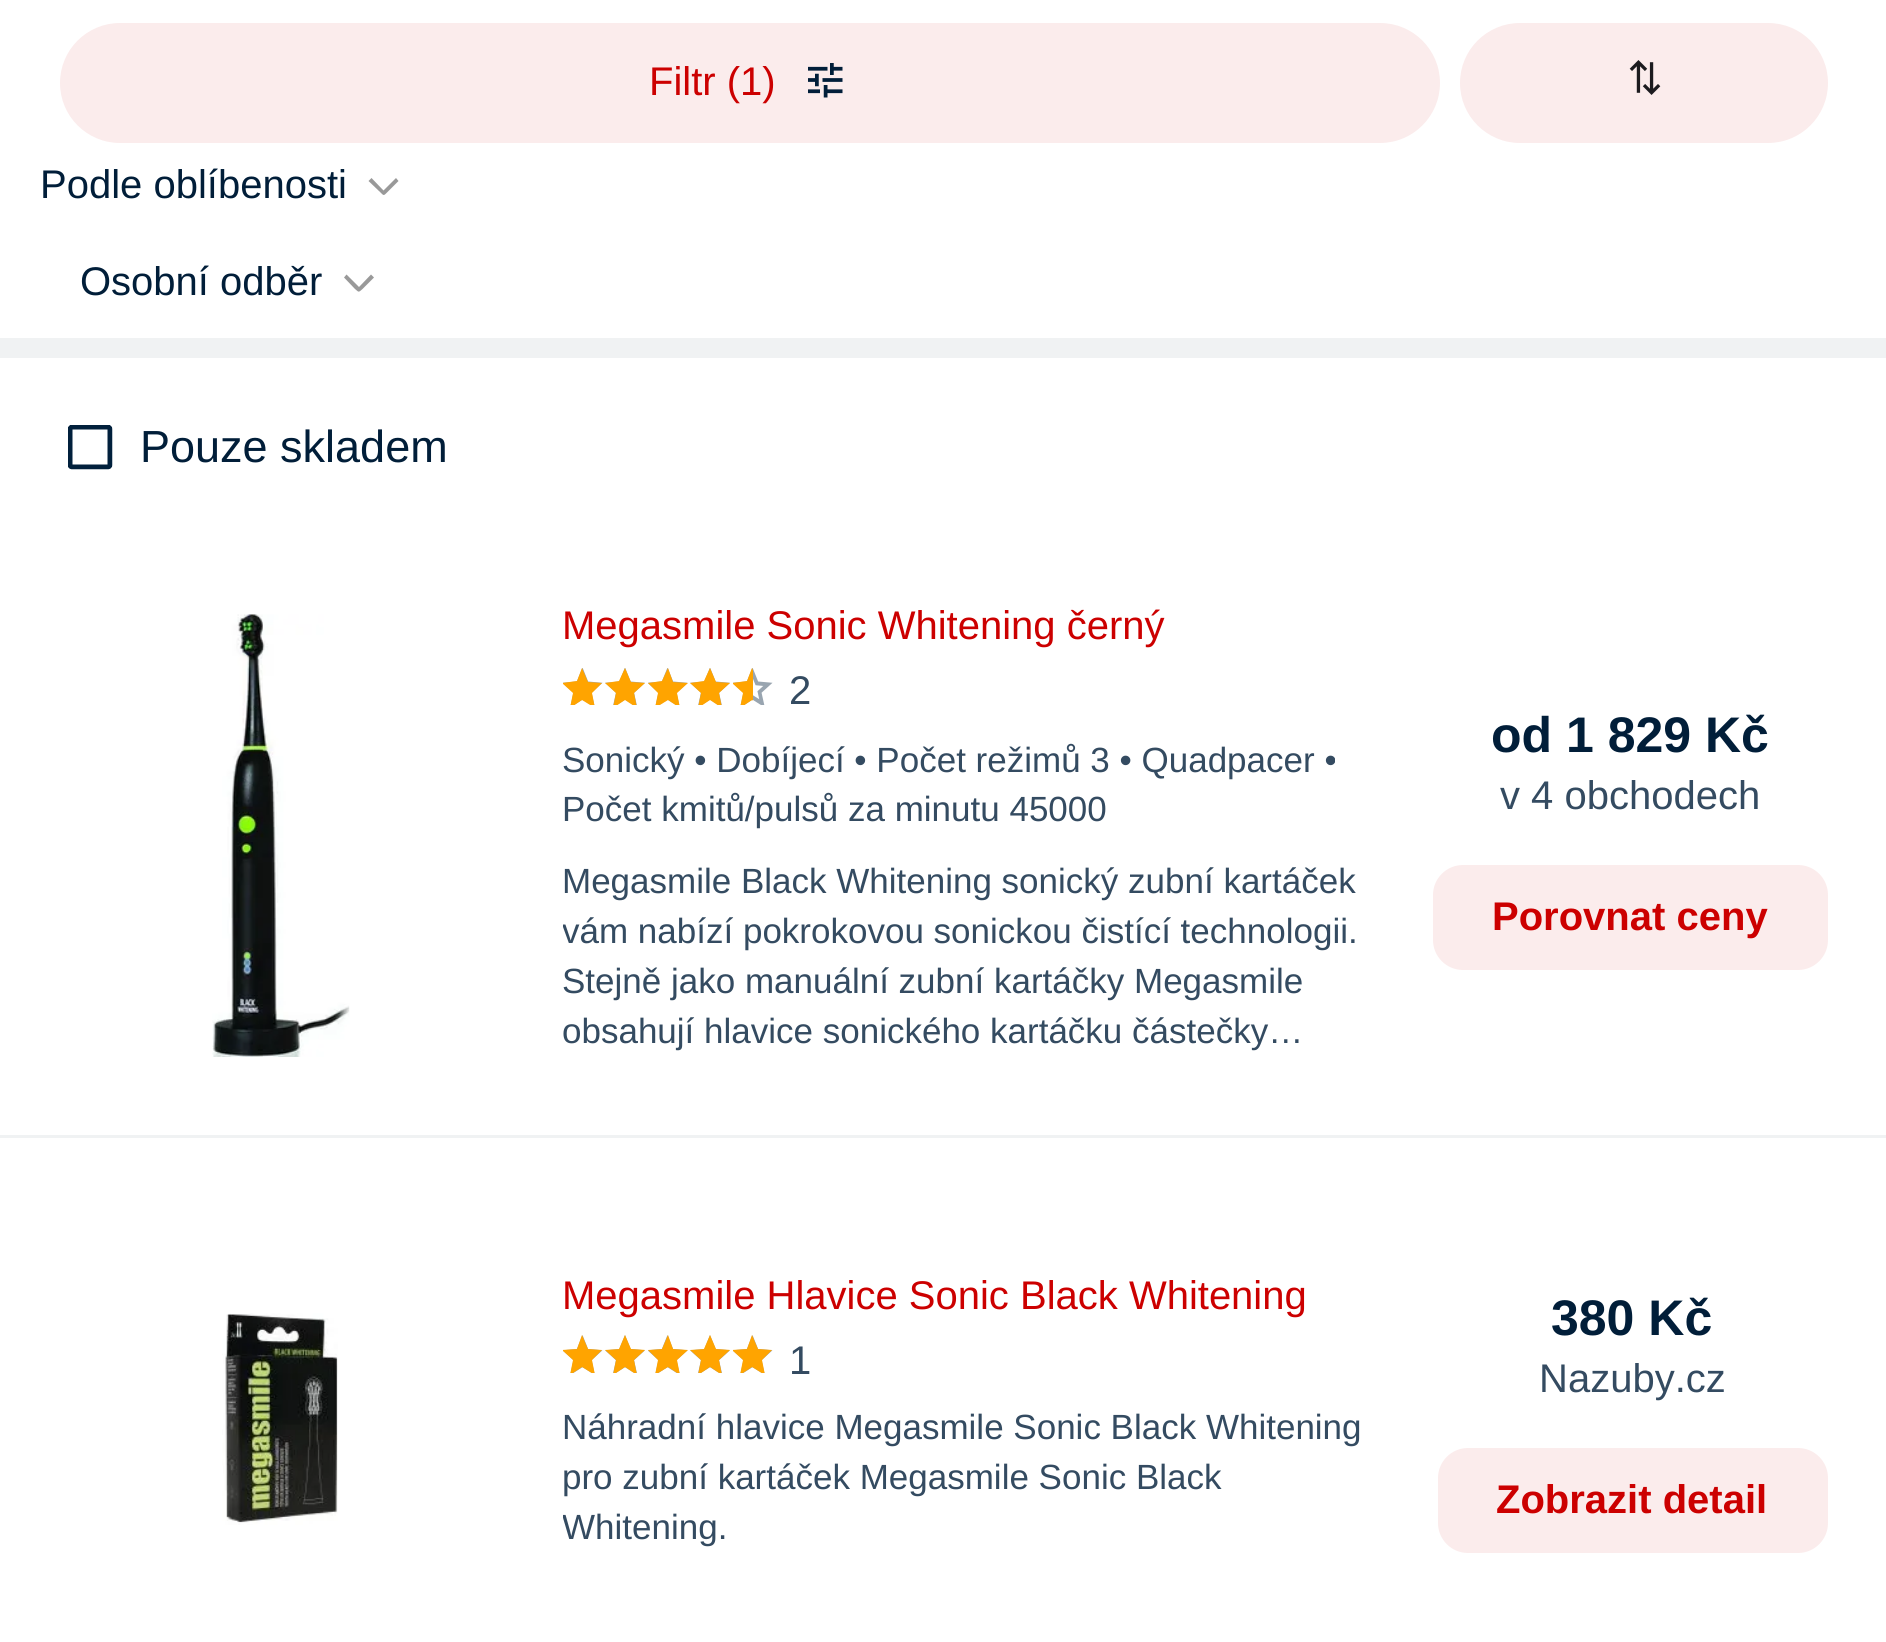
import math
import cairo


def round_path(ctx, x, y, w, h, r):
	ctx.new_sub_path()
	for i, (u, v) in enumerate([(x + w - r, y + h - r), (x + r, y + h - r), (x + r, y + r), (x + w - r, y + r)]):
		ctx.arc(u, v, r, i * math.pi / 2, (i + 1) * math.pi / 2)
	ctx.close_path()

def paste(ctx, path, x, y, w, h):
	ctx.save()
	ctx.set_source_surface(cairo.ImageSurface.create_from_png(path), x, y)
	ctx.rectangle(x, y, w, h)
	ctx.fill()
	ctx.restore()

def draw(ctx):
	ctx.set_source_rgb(1, 1, 1)
	ctx.paint()
	ctx.set_source_rgb(0.984, 0.922, 0.922)
	round_path(ctx, 60, 23, 1380, 120, 60)
	ctx.fill()
	ctx.select_font_face('Liberation Sans')
	ctx.set_font_size(40)
	ctx.set_source_rgb(0.8, 0, 0)
	ctx.move_to(649, 95)
	ctx.show_text('Filtr (1)')
	paste(ctx, 'media/1.png', 808, 63, 35, 35)
	ctx.set_source_rgb(0.984, 0.922, 0.922)
	round_path(ctx, 1460, 23, 368, 120, 60)
	ctx.fill()
	paste(ctx, 'media/2.png', 1629, 60, 32, 35)
	ctx.set_source_rgb(0.004, 0.118, 0.224)
	ctx.move_to(40, 198)
	ctx.show_text('Podle oblíbenosti')
	ctx.set_source_rgb(0.6, 0.6, 0.6)
	ctx.new_path()
	ctx.move_to(368.5, 181)
	ctx.line_to(371.5, 178)
	ctx.line_to(383.5, 190.5)
	ctx.line_to(396, 178)
	ctx.line_to(398.5, 181)
	ctx.line_to(387.5, 192)
	ctx.curve_to(383.5, 196, 384, 196, 380, 192)
	ctx.close_path()
	ctx.fill()
	ctx.set_source_rgb(0.004, 0.118, 0.224)
	ctx.move_to(80, 295)
	ctx.show_text('Osobní odběr')
	ctx.set_source_rgb(0.6, 0.6, 0.6)
	ctx.new_path()
	ctx.move_to(344, 277.5)
	ctx.line_to(346.5, 274.5)
	ctx.line_to(359, 287)
	ctx.line_to(371, 274.5)
	ctx.line_to(374, 277.5)
	ctx.line_to(362.5, 289)
	ctx.curve_to(358.5, 292.5, 359, 292.5, 355, 289)
	ctx.close_path()
	ctx.fill()
	ctx.set_source_rgb(0.941, 0.949, 0.953)
	ctx.rectangle(0, 338, 1886, 20)
	ctx.fill()
	paste(ctx, 'media/3.png', 68, 425, 45, 45)
	ctx.set_font_size(45)
	ctx.set_source_rgb(0.004, 0.118, 0.224)
	ctx.move_to(140, 462)
	ctx.show_text('Pouze skladem')
	ctx.set_source_rgb(0.941, 0.949, 0.953)
	ctx.rectangle(0, 1135, 1886, 3)
	ctx.fill()
	paste(ctx, 'media/4.png', 212, 614, 138, 443)
	ctx.set_font_size(40)
	ctx.set_source_rgb(0.8, 0, 0)
	ctx.move_to(562, 639)
	ctx.show_text('Megasmile Sonic Whitening černý')
	paste(ctx, 'media/5.png', 563, 668, 40, 37)
	paste(ctx, 'media/6.png', 605, 668, 40, 37)
	paste(ctx, 'media/5.png', 648, 668, 40, 37)
	paste(ctx, 'media/6.png', 690, 668, 40, 37)
	paste(ctx, 'media/5.png', 733, 668, 40, 37)
	ctx.save()
	ctx.rectangle(563, 668, 40, 37)
	ctx.clip()
	ctx.set_source_rgb(1, 0.643, 0)
	ctx.new_path()
	ctx.move_to(570, 708)
	ctx.line_to(573, 693)
	ctx.line_to(562, 683)
	ctx.line_to(577, 681)
	ctx.line_to(582, 668)
	ctx.line_to(588, 682)
	ctx.line_to(602, 683)
	ctx.line_to(592, 693)
	ctx.line_to(595, 708)
	ctx.line_to(582, 700)
	ctx.close_path()
	ctx.fill()
	ctx.restore()
	ctx.save()
	ctx.rectangle(605, 668, 40, 37)
	ctx.clip()
	ctx.set_source_rgb(1, 0.643, 0)
	ctx.new_path()
	ctx.move_to(613, 708)
	ctx.line_to(616, 693)
	ctx.line_to(605, 683)
	ctx.line_to(619, 681)
	ctx.line_to(625, 668)
	ctx.line_to(631, 682)
	ctx.line_to(645, 683)
	ctx.line_to(634, 693)
	ctx.line_to(637, 708)
	ctx.line_to(625, 700)
	ctx.close_path()
	ctx.fill()
	ctx.restore()
	ctx.save()
	ctx.rectangle(648, 668, 40, 37)
	ctx.clip()
	ctx.set_source_rgb(1, 0.643, 0)
	ctx.new_path()
	ctx.move_to(655, 708)
	ctx.line_to(658, 693)
	ctx.line_to(648, 683)
	ctx.line_to(662, 681)
	ctx.line_to(668, 668)
	ctx.line_to(673, 682)
	ctx.line_to(688, 683)
	ctx.line_to(677, 693)
	ctx.line_to(680, 708)
	ctx.line_to(668, 700)
	ctx.close_path()
	ctx.fill()
	ctx.restore()
	ctx.save()
	ctx.rectangle(690, 668, 40, 37)
	ctx.clip()
	ctx.set_source_rgb(1, 0.643, 0)
	ctx.new_path()
	ctx.move_to(698, 708)
	ctx.line_to(701, 693)
	ctx.line_to(690, 683)
	ctx.line_to(704, 681)
	ctx.line_to(710, 668)
	ctx.line_to(716, 682)
	ctx.line_to(730, 683)
	ctx.line_to(719, 693)
	ctx.line_to(722, 708)
	ctx.line_to(710, 700)
	ctx.close_path()
	ctx.fill()
	ctx.restore()
	ctx.save()
	ctx.rectangle(733, 668, 20, 37)
	ctx.clip()
	ctx.set_source_rgb(1, 0.643, 0)
	ctx.new_path()
	ctx.move_to(740, 708)
	ctx.line_to(743, 693)
	ctx.line_to(732, 683)
	ctx.line_to(747, 681)
	ctx.line_to(752, 668)
	ctx.line_to(758, 682)
	ctx.line_to(772, 683)
	ctx.line_to(762, 693)
	ctx.line_to(765, 708)
	ctx.line_to(752, 700)
	ctx.close_path()
	ctx.fill()
	ctx.restore()
	ctx.set_source_rgb(0.204, 0.294, 0.38)
	ctx.move_to(789, 704)
	ctx.show_text('2')
	ctx.set_font_size(35)
	for x, y, s in [
		(562, 772, 'Sonický • Dobíjecí • Počet režimů 3 • Quadpacer •'),
		(562, 821, 'Počet kmitů/pulsů za minutu 45000'),
		(562, 893, 'Megasmile Black Whitening sonický zubní kartáček'),
	]:
		ctx.move_to(x, y)
		ctx.show_text(s)
	ctx.save()
	ctx.rectangle(563, 855, 830, 200)
	ctx.clip()
	ctx.move_to(562, 943)
	ctx.show_text('vám nabízí pokrokovou sonickou čistící technologii.')
	ctx.restore()
	ctx.move_to(562, 993)
	ctx.show_text('Stejně jako manuální zubní kartáčky Megasmile')
	ctx.move_to(562, 1043)
	ctx.show_text('obsahují hlavice sonického kartáčku částečky…')
	ctx.select_font_face('Liberation Sans', cairo.FONT_SLANT_NORMAL, cairo.FONT_WEIGHT_BOLD)
	ctx.set_font_size(50)
	ctx.set_source_rgb(0.004, 0.118, 0.224)
	ctx.move_to(1491, 752)
	ctx.show_text('od 1 829 Kč')
	ctx.select_font_face('Liberation Sans')
	ctx.set_font_size(40)
	ctx.set_source_rgb(0.204, 0.294, 0.38)
	ctx.move_to(1500, 809)
	ctx.show_text('v 4 obchodech')
	ctx.set_source_rgb(0.984, 0.922, 0.922)
	round_path(ctx, 1433, 865, 395, 105, 30)
	ctx.fill()
	ctx.select_font_face('Liberation Sans', cairo.FONT_SLANT_NORMAL, cairo.FONT_WEIGHT_BOLD)
	ctx.set_source_rgb(0.8, 0, 0)
	ctx.move_to(1492, 930)
	ctx.show_text('Porovnat ceny')
	paste(ctx, 'media/7.png', 222, 1313, 116, 212)
	ctx.select_font_face('Liberation Sans')
	ctx.move_to(562, 1309)
	ctx.show_text('Megasmile Hlavice Sonic Black Whitening')
	paste(ctx, 'media/8.png', 563, 1335, 40, 38)
	paste(ctx, 'media/9.png', 605, 1335, 40, 38)
	paste(ctx, 'media/8.png', 648, 1335, 40, 38)
	paste(ctx, 'media/9.png', 690, 1335, 40, 38)
	paste(ctx, 'media/8.png', 733, 1335, 40, 38)
	ctx.save()
	ctx.rectangle(563, 1335, 40, 38)
	ctx.clip()
	ctx.set_source_rgb(1, 0.643, 0)
	ctx.new_path()
	ctx.move_to(570, 1375)
	ctx.line_to(573, 1360)
	ctx.line_to(562, 1350)
	ctx.line_to(577, 1349)
	ctx.line_to(582, 1335)
	ctx.line_to(588, 1349)
	ctx.line_to(602, 1350)
	ctx.line_to(592, 1360)
	ctx.line_to(595, 1375)
	ctx.line_to(582, 1367)
	ctx.close_path()
	ctx.fill()
	ctx.restore()
	ctx.save()
	ctx.rectangle(605, 1335, 40, 38)
	ctx.clip()
	ctx.set_source_rgb(1, 0.643, 0)
	ctx.new_path()
	ctx.move_to(613, 1375)
	ctx.line_to(616, 1360)
	ctx.line_to(605, 1350)
	ctx.line_to(619, 1349)
	ctx.line_to(625, 1335)
	ctx.line_to(631, 1349)
	ctx.line_to(645, 1350)
	ctx.line_to(634, 1360)
	ctx.line_to(637, 1375)
	ctx.line_to(625, 1367)
	ctx.close_path()
	ctx.fill()
	ctx.restore()
	ctx.save()
	ctx.rectangle(648, 1335, 40, 38)
	ctx.clip()
	ctx.set_source_rgb(1, 0.643, 0)
	ctx.new_path()
	ctx.move_to(655, 1375)
	ctx.line_to(658, 1360)
	ctx.line_to(648, 1350)
	ctx.line_to(662, 1349)
	ctx.line_to(668, 1335)
	ctx.line_to(673, 1349)
	ctx.line_to(688, 1350)
	ctx.line_to(677, 1360)
	ctx.line_to(680, 1375)
	ctx.line_to(668, 1367)
	ctx.close_path()
	ctx.fill()
	ctx.restore()
	ctx.save()
	ctx.rectangle(690, 1335, 40, 38)
	ctx.clip()
	ctx.set_source_rgb(1, 0.643, 0)
	ctx.new_path()
	ctx.move_to(698, 1375)
	ctx.line_to(701, 1360)
	ctx.line_to(690, 1350)
	ctx.line_to(704, 1349)
	ctx.line_to(710, 1335)
	ctx.line_to(716, 1349)
	ctx.line_to(730, 1350)
	ctx.line_to(719, 1360)
	ctx.line_to(722, 1375)
	ctx.line_to(710, 1367)
	ctx.close_path()
	ctx.fill()
	ctx.restore()
	ctx.save()
	ctx.rectangle(733, 1335, 40, 38)
	ctx.clip()
	ctx.set_source_rgb(1, 0.643, 0)
	ctx.new_path()
	ctx.move_to(740, 1375)
	ctx.line_to(743, 1360)
	ctx.line_to(732, 1350)
	ctx.line_to(747, 1349)
	ctx.line_to(752, 1335)
	ctx.line_to(758, 1349)
	ctx.line_to(772, 1350)
	ctx.line_to(762, 1360)
	ctx.line_to(765, 1375)
	ctx.line_to(752, 1367)
	ctx.close_path()
	ctx.fill()
	ctx.restore()
	ctx.set_source_rgb(0.204, 0.294, 0.38)
	ctx.move_to(789, 1374)
	ctx.show_text('1')
	ctx.set_font_size(35)
	ctx.move_to(562, 1439)
	ctx.show_text('Náhradní hlavice Megasmile Sonic Black Whitening')
	ctx.move_to(562, 1489)
	ctx.show_text('pro zubní kartáček Megasmile Sonic Black')
	ctx.save()
	ctx.rectangle(563, 1403, 835, 150)
	ctx.clip()
	ctx.move_to(562, 1539)
	ctx.show_text('Whitening.')
	ctx.restore()
	ctx.select_font_face('Liberation Sans', cairo.FONT_SLANT_NORMAL, cairo.FONT_WEIGHT_BOLD)
	ctx.set_font_size(50)
	ctx.set_source_rgb(0.004, 0.118, 0.224)
	ctx.move_to(1551, 1335)
	ctx.show_text('380 Kč')
	ctx.select_font_face('Liberation Sans')
	ctx.set_font_size(40)
	ctx.set_source_rgb(0.204, 0.294, 0.38)
	ctx.move_to(1539, 1392)
	ctx.show_text('Nazuby.cz')
	ctx.set_source_rgb(0.984, 0.922, 0.922)
	round_path(ctx, 1438, 1448, 390, 105, 30)
	ctx.fill()
	ctx.select_font_face('Liberation Sans', cairo.FONT_SLANT_NORMAL, cairo.FONT_WEIGHT_BOLD)
	ctx.set_source_rgb(0.8, 0, 0)
	ctx.move_to(1496, 1513)
	ctx.show_text('Zobrazit detail')


surface = cairo.ImageSurface(cairo.FORMAT_RGB24, 1886, 1642)
ctx = cairo.Context(surface)
options = cairo.FontOptions()
options.set_hint_metrics(cairo.HINT_METRICS_OFF)
options.set_hint_style(cairo.HINT_STYLE_NONE)
ctx.set_font_options(options)
ctx.set_miter_limit(4)
draw(ctx)
surface.write_to_png('image.png')
